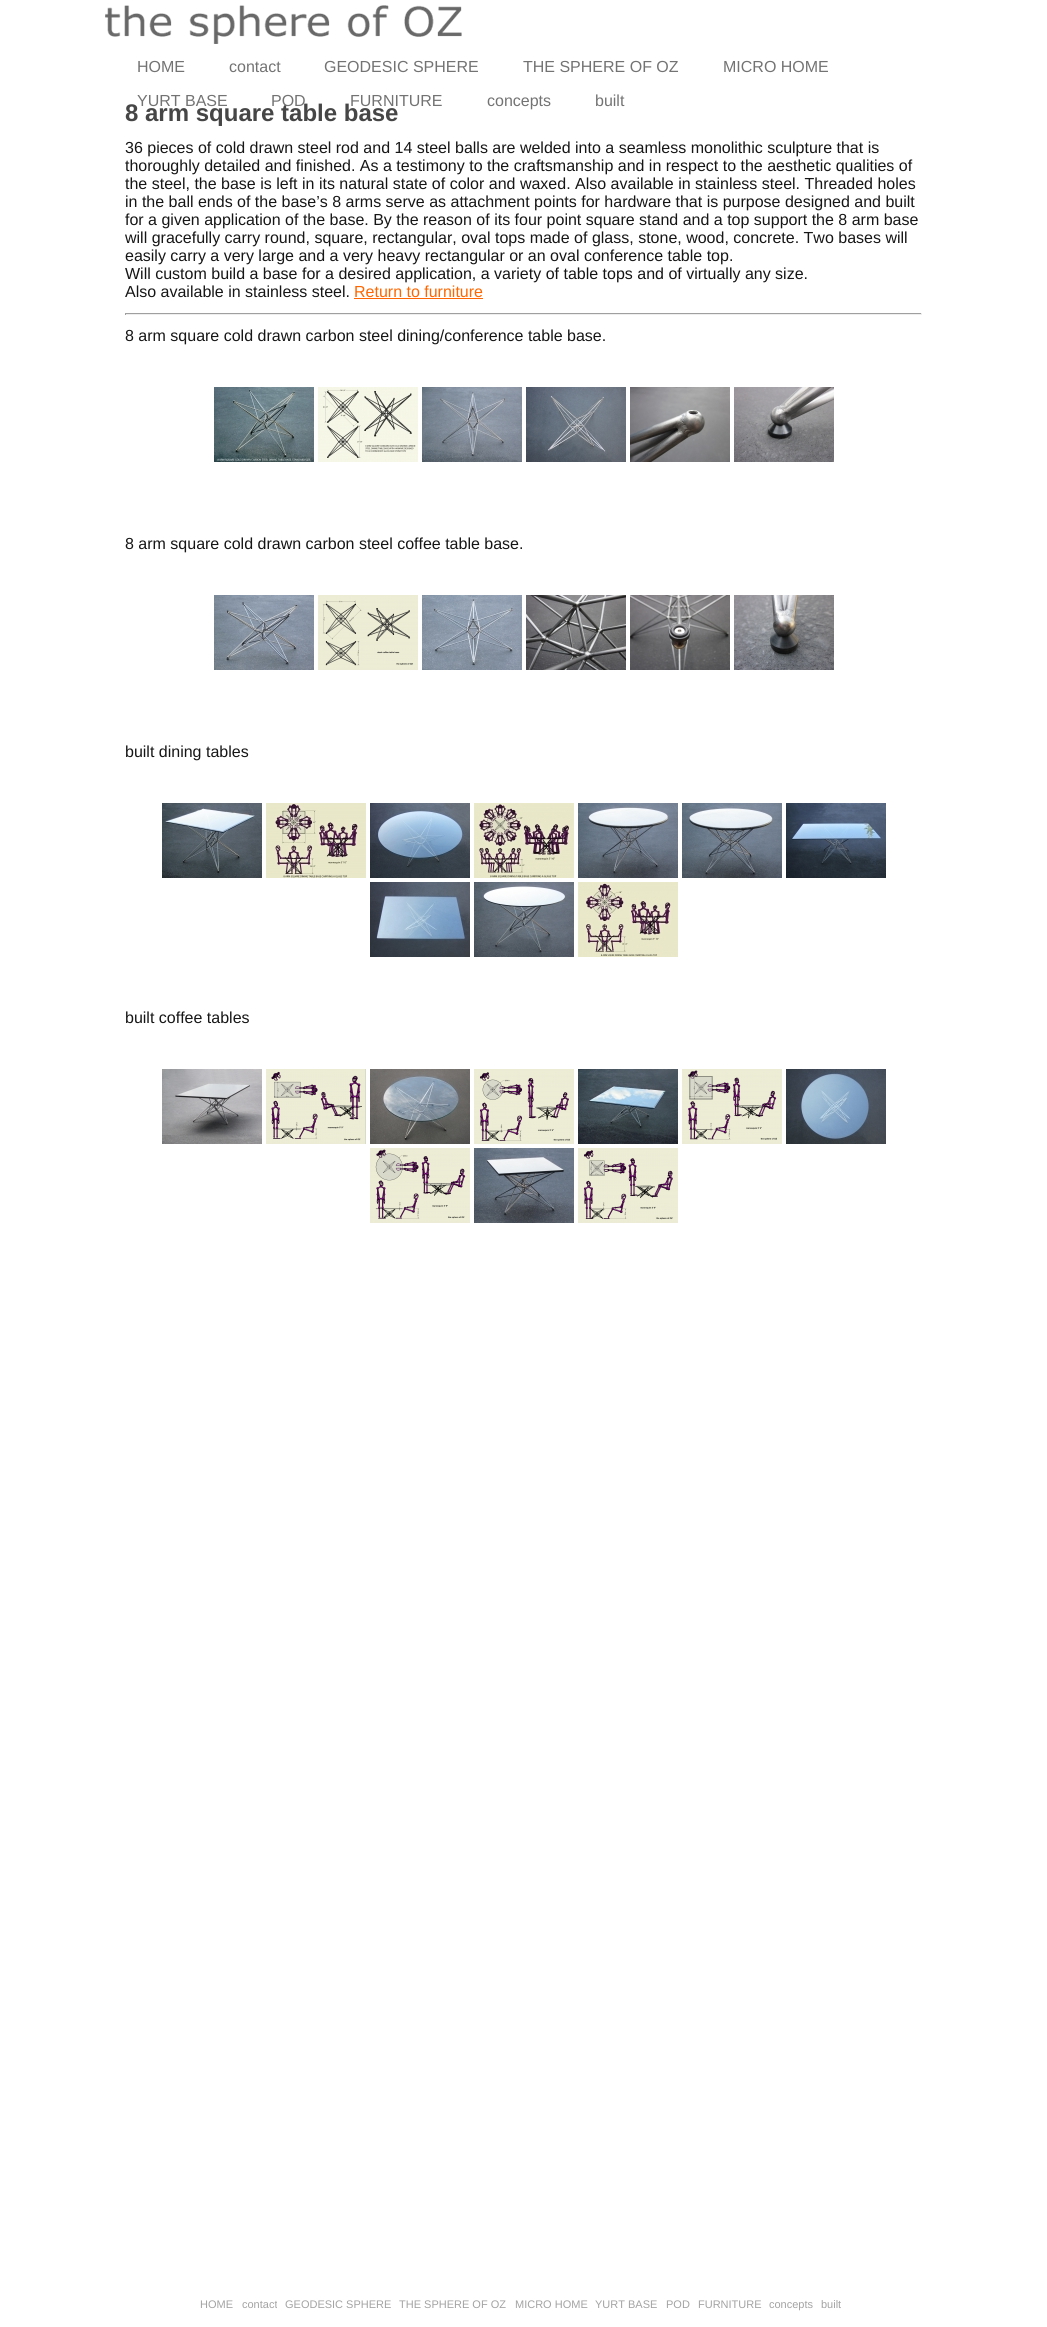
import math
import cairo


def paste(ctx, path, x, y, w, h):
	ctx.save()
	ctx.set_source_surface(cairo.ImageSurface.create_from_png(path), x, y)
	ctx.rectangle(x, y, w, h)
	ctx.fill()
	ctx.restore()

def draw(ctx):
	ctx.set_source_rgb(1, 1, 1)
	ctx.paint()
	paste(ctx, 'media/1.png', 105, 5, 357, 39)
	ctx.select_font_face('Liberation Sans')
	ctx.set_font_size(16)
	ctx.set_source_rgb(0.451, 0.451, 0.451)
	for x, y, s in [
		(137, 72, 'HOME'),
		(229, 72, 'contact'),
		(324, 72, 'GEODESIC SPHERE'),
		(523, 72, 'THE SPHERE OF OZ'),
		(723, 72, 'MICRO HOME'),
		(137, 106, 'YURT BASE'),
		(271, 106, 'POD'),
		(350, 106, 'FURNITURE'),
		(487, 106, 'concepts'),
		(595, 106, 'built'),
	]:
		ctx.move_to(x, y)
		ctx.show_text(s)
	ctx.select_font_face('Liberation Sans', cairo.FONT_SLANT_NORMAL, cairo.FONT_WEIGHT_BOLD)
	ctx.set_font_size(24)
	ctx.set_source_rgb(0.275, 0.275, 0.275)
	ctx.move_to(125, 121)
	ctx.show_text('8 arm square table base')
	ctx.select_font_face('Liberation Sans')
	ctx.set_font_size(16)
	ctx.set_source_rgb(0.086, 0.086, 0.086)
	for x, y, s in [
		(125, 153, '36 pieces of cold drawn steel rod and 14 steel balls are welded into a seamless monolithic sculpture that is'),
		(125, 171, 'thoroughly detailed and finished. As a testimony to the craftsmanship and in respect to the aesthetic qualities of'),
		(125, 189, 'the steel, the base is left in its natural state of color and waxed. Also available in stainless steel. Threaded holes'),
		(125, 207, 'in the ball ends of the base’s 8 arms serve as attachment points for hardware that is purpose designed and built'),
		(125, 225, 'for a given application of the base. By the reason of its four point square stand and a top support the 8 arm base'),
		(125, 243, 'will gracefully carry round, square, rectangular, oval tops made of glass, stone, wood, concrete. Two bases will'),
		(125, 261, 'easily carry a very large and a very heavy rectangular or an oval conference table top.'),
		(125, 279, 'Will custom build a base for a desired application, a variety of table tops and of virtually any size.'),
		(125, 297, 'Also available in stainless steel.'),
	]:
		ctx.move_to(x, y)
		ctx.show_text(s)
	ctx.set_source_rgb(1, 0.4, 0)
	ctx.move_to(354, 297)
	ctx.show_text('Return to furniture')
	ctx.rectangle(354, 298, 129, 1)
	ctx.fill()
	ctx.set_source_rgb(0.624, 0.624, 0.624)
	ctx.rectangle(125, 313, 797, 1)
	ctx.fill()
	ctx.set_source_rgb(0.933, 0.933, 0.933)
	ctx.rectangle(921, 313, 1, 2)
	ctx.rectangle(125, 314, 797, 1)
	ctx.fill()
	ctx.set_source_rgb(0.624, 0.624, 0.624)
	ctx.rectangle(125, 313, 1, 2)
	ctx.fill()
	ctx.set_source_rgb(0.086, 0.086, 0.086)
	ctx.move_to(125, 341)
	ctx.show_text('8 arm square cold drawn carbon steel dining/conference table base.')
	paste(ctx, 'media/2.png', 214, 387, 100, 75)
	paste(ctx, 'media/3.png', 318, 387, 100, 75)
	paste(ctx, 'media/4.png', 422, 387, 100, 75)
	paste(ctx, 'media/5.png', 526, 387, 100, 75)
	paste(ctx, 'media/6.png', 630, 387, 100, 75)
	paste(ctx, 'media/7.png', 734, 387, 100, 75)
	ctx.move_to(125, 549)
	ctx.show_text('8 arm square cold drawn carbon steel coffee table base.')
	paste(ctx, 'media/8.png', 214, 595, 100, 75)
	paste(ctx, 'media/9.png', 318, 595, 100, 75)
	paste(ctx, 'media/10.png', 422, 595, 100, 75)
	paste(ctx, 'media/11.png', 526, 595, 100, 75)
	paste(ctx, 'media/12.png', 630, 595, 100, 75)
	paste(ctx, 'media/13.png', 734, 595, 100, 75)
	ctx.move_to(125, 757)
	ctx.show_text('built dining tables')
	paste(ctx, 'media/14.png', 162, 803, 100, 75)
	paste(ctx, 'media/15.png', 266, 803, 100, 75)
	paste(ctx, 'media/16.png', 370, 803, 100, 75)
	paste(ctx, 'media/17.png', 474, 803, 100, 75)
	paste(ctx, 'media/18.png', 578, 803, 100, 75)
	paste(ctx, 'media/19.png', 682, 803, 100, 75)
	paste(ctx, 'media/20.png', 786, 803, 100, 75)
	paste(ctx, 'media/21.png', 370, 882, 100, 75)
	paste(ctx, 'media/22.png', 474, 882, 100, 75)
	paste(ctx, 'media/23.png', 578, 882, 100, 75)
	ctx.move_to(125, 1023)
	ctx.show_text('built coffee tables')
	paste(ctx, 'media/24.png', 162, 1069, 100, 75)
	paste(ctx, 'media/25.png', 266, 1069, 100, 75)
	paste(ctx, 'media/26.png', 370, 1069, 100, 75)
	paste(ctx, 'media/27.png', 474, 1069, 100, 75)
	paste(ctx, 'media/28.png', 578, 1069, 100, 75)
	paste(ctx, 'media/29.png', 682, 1069, 100, 75)
	paste(ctx, 'media/30.png', 786, 1069, 100, 75)
	paste(ctx, 'media/31.png', 370, 1148, 100, 75)
	paste(ctx, 'media/32.png', 474, 1148, 100, 75)
	paste(ctx, 'media/33.png', 578, 1148, 100, 75)
	ctx.set_font_size(11)
	ctx.set_source_rgb(0.639, 0.639, 0.639)
	for x, y, s in [
		(200, 2308, 'HOME'),
		(242, 2308, 'contact'),
		(285, 2308, 'GEODESIC SPHERE'),
		(399, 2308, 'THE SPHERE OF OZ'),
		(515, 2308, 'MICRO HOME'),
		(595, 2308, 'YURT BASE'),
		(666, 2308, 'POD'),
		(698, 2308, 'FURNITURE'),
		(769, 2308, 'concepts'),
		(821, 2308, 'built'),
	]:
		ctx.move_to(x, y)
		ctx.show_text(s)


surface = cairo.ImageSurface(cairo.FORMAT_RGB24, 1047, 2327)
ctx = cairo.Context(surface)
options = cairo.FontOptions()
options.set_hint_metrics(cairo.HINT_METRICS_OFF)
options.set_hint_style(cairo.HINT_STYLE_NONE)
ctx.set_font_options(options)
ctx.set_miter_limit(4)
draw(ctx)
surface.write_to_png('image.png')
